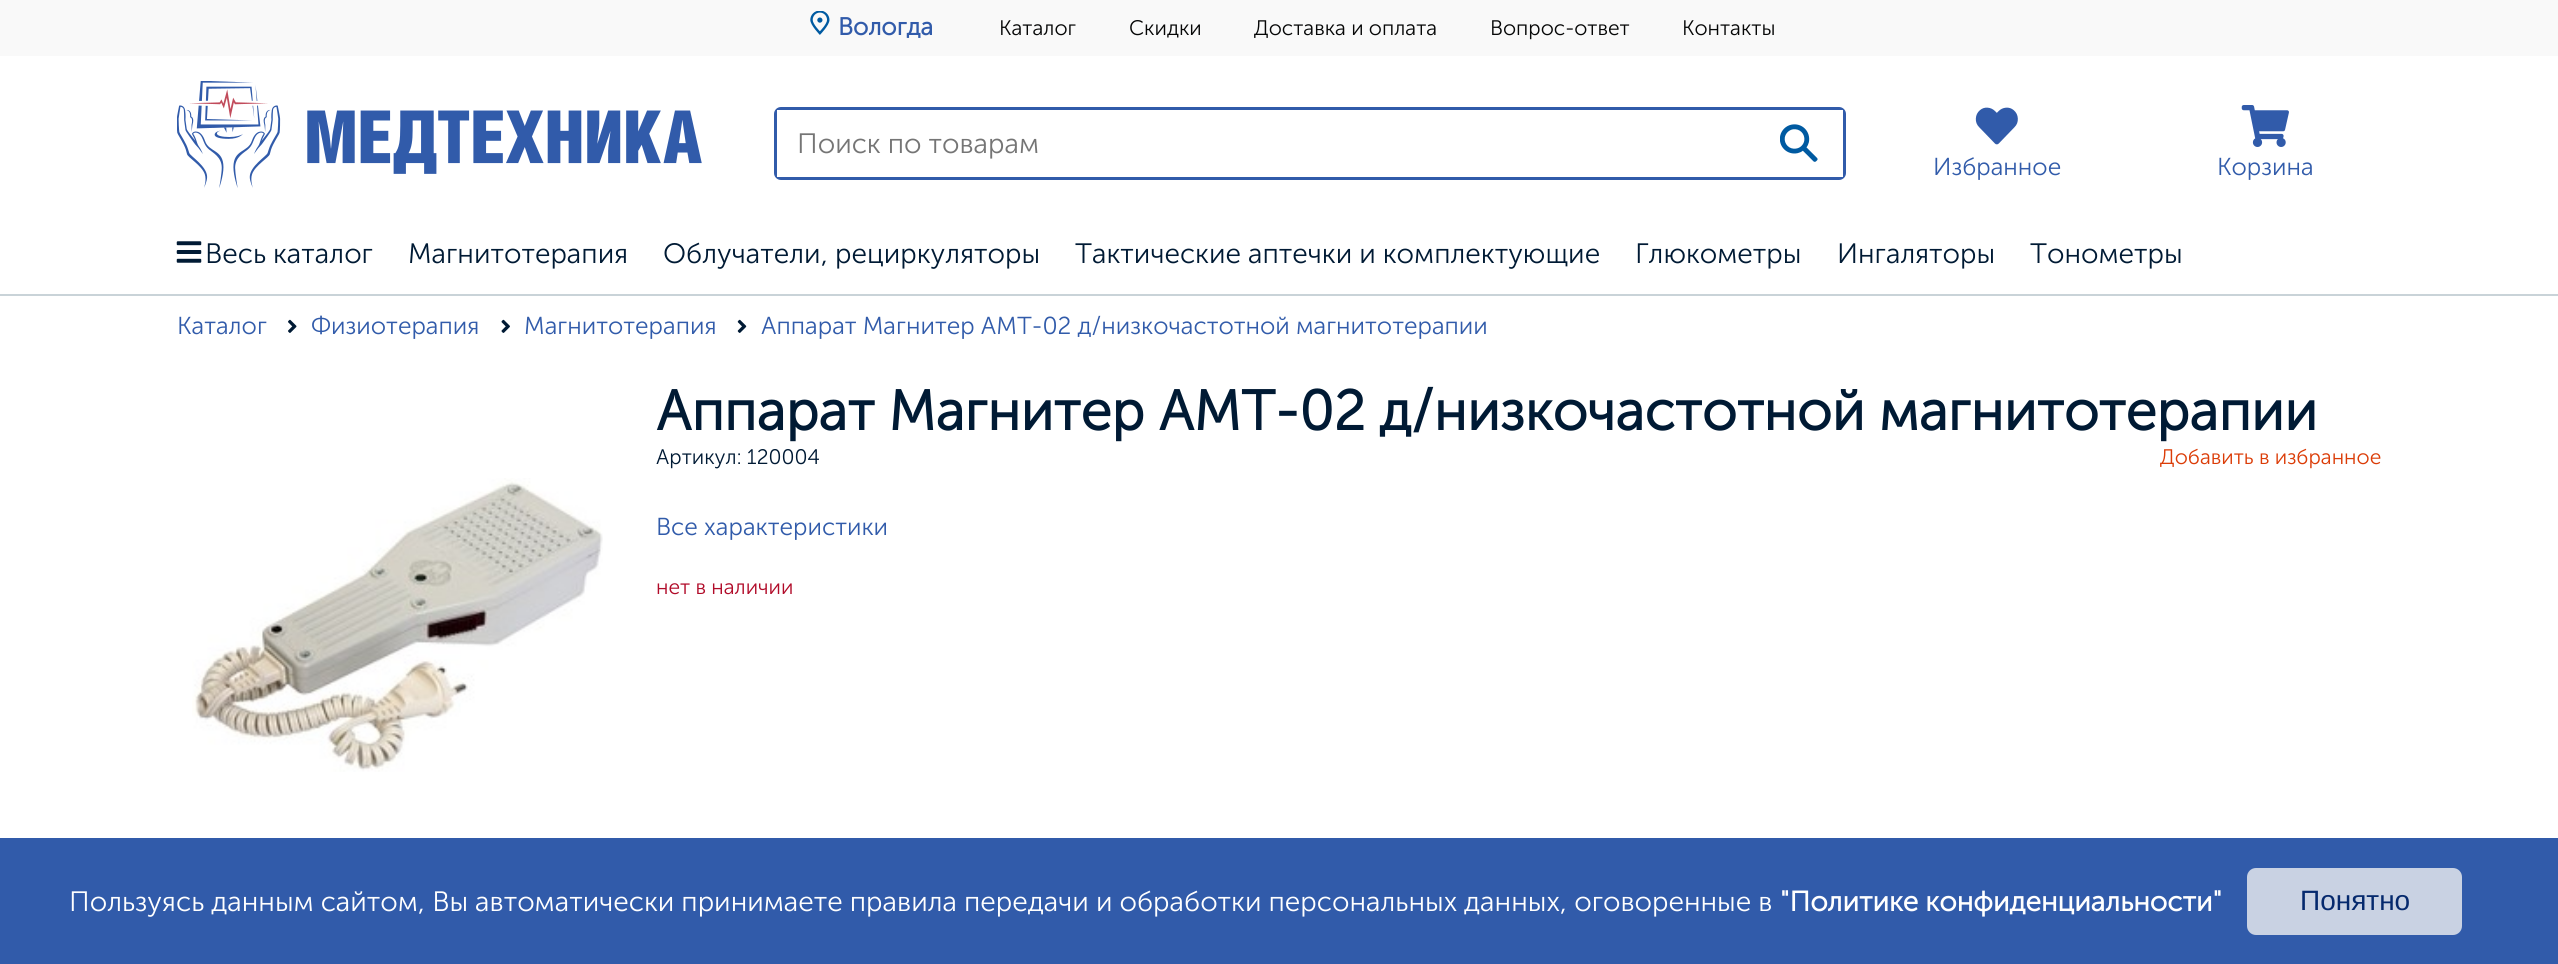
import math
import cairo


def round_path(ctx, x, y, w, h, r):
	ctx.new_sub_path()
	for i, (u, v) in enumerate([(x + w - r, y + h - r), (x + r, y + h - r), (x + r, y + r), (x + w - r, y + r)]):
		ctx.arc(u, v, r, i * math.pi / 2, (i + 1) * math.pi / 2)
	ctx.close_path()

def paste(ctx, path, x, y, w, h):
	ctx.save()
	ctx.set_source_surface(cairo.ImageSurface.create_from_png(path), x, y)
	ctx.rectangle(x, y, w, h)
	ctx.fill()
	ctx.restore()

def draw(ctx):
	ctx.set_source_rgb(1, 1, 1)
	ctx.paint()
	ctx.set_source_rgb(0.788, 0.827, 0.847)
	ctx.rectangle(0, 294, 2558, 2)
	ctx.fill()
	ctx.set_source_rgb(0.973, 0.973, 0.973)
	ctx.rectangle(0, 0, 2558, 56)
	ctx.fill()
	paste(ctx, 'media/1.png', 810, 11, 20, 24)
	ctx.select_font_face('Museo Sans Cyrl', cairo.FONT_SLANT_NORMAL, cairo.FONT_WEIGHT_BOLD)
	ctx.set_font_size(24.5)
	ctx.set_source_rgb(0.192, 0.357, 0.667)
	ctx.move_to(838, 35)
	ctx.show_text('Вологда')
	ctx.select_font_face('Museo Sans Cyrl Light')
	ctx.set_font_size(21)
	ctx.set_source_rgb(0.027, 0.031, 0.031)
	for x, y, s in [
		(999, 35, 'Каталог'),
		(1129, 35, 'Скидки'),
		(1254, 35, 'Доставка и оплата'),
		(1490, 35, 'Вопрос-ответ'),
		(1682, 35, 'Контакты'),
	]:
		ctx.move_to(x, y)
		ctx.show_text(s)
	paste(ctx, 'media/2.png', 177, 81, 525, 107)
	round_path(ctx, 776, 109, 1068, 69, 5)
	ctx.set_source_rgb(0.192, 0.357, 0.667)
	ctx.set_line_width(4)
	ctx.stroke()
	ctx.set_source_rgb(1, 1, 1)
	ctx.rectangle(777, 110, 978, 67)
	ctx.fill()
	ctx.set_font_size(28)
	ctx.set_source_rgb(0.459, 0.459, 0.459)
	ctx.move_to(797, 153)
	ctx.show_text('Поиск по товарам')
	ctx.rectangle(1756, 111, 86, 65)
	ctx.set_source_rgb(1, 1, 1)
	ctx.set_line_width(2)
	ctx.stroke()
	paste(ctx, 'media/3.png', 1780, 124, 38, 38)
	paste(ctx, 'media/4.png', 1975, 107, 43, 38)
	ctx.set_font_size(24.5)
	ctx.set_source_rgb(0.192, 0.357, 0.667)
	ctx.move_to(1933, 175)
	ctx.show_text('Избранное')
	paste(ctx, 'media/5.png', 2241, 105, 48, 42)
	ctx.move_to(2217, 175)
	ctx.show_text('Корзина')
	paste(ctx, 'media/6.png', 176, 241, 26, 22)
	ctx.set_font_size(28)
	ctx.set_source_rgb(0, 0.102, 0.204)
	for x, y, s in [
		(205, 263, 'Весь каталог'),
		(408, 263, 'Магнитотерапия'),
		(663, 263, 'Облучатели, рециркуляторы'),
		(1075, 263, 'Тактические аптечки и комплектующие'),
		(1635, 263, 'Глюкометры'),
		(1837, 263, 'Ингаляторы'),
		(2030, 263, 'Тонометры'),
	]:
		ctx.move_to(x, y)
		ctx.show_text(s)
	ctx.set_font_size(24.5)
	ctx.set_source_rgb(0.192, 0.357, 0.667)
	ctx.move_to(177, 334)
	ctx.show_text('Каталог')
	paste(ctx, 'media/7.png', 288, 319, 9, 14)
	ctx.move_to(311, 334)
	ctx.show_text('Физиотерапия')
	paste(ctx, 'media/8.png', 501, 319, 9, 14)
	ctx.move_to(524, 334)
	ctx.show_text('Магнитотерапия')
	paste(ctx, 'media/9.png', 737, 319, 10, 14)
	ctx.move_to(761, 334)
	ctx.show_text('Аппарат Магнитер АМТ-02 д/низкочастотной магнитотерапии')
	paste(ctx, 'media/10.png', 192, 478, 411, 294)
	ctx.select_font_face('Museo Sans Cyrl', cairo.FONT_SLANT_NORMAL, cairo.FONT_WEIGHT_BOLD)
	ctx.set_font_size(56)
	ctx.set_source_rgb(0, 0.102, 0.204)
	ctx.move_to(656, 430)
	ctx.show_text('Аппарат Магнитер АМТ-02 д/низкочастотной магнитотерапии')
	ctx.select_font_face('Museo Sans Cyrl Light')
	ctx.set_font_size(21)
	ctx.move_to(656, 464)
	ctx.show_text('Артикул: 120004')
	ctx.set_source_rgb(0.859, 0.235, 0.031)
	ctx.move_to(2160, 464)
	ctx.show_text('Добавить в избранное')
	ctx.set_font_size(24.5)
	ctx.set_source_rgb(0.192, 0.357, 0.667)
	ctx.move_to(656, 535)
	ctx.show_text('Все характеристики')
	ctx.set_font_size(21)
	ctx.set_source_rgb(0.694, 0.043, 0.161)
	ctx.move_to(656, 594)
	ctx.show_text('нет в наличии')
	ctx.set_source_rgb(0.192, 0.357, 0.667)
	ctx.rectangle(0, 838, 2558, 126)
	ctx.fill()
	ctx.set_font_size(28)
	ctx.set_source_rgb(1, 1, 1)
	ctx.move_to(69, 911)
	ctx.show_text('Пользуясь данным сайтом, Вы автоматически принимаете правила передачи и обработки персональных данных, оговоренные в')
	ctx.select_font_face('Museo Sans Cyrl', cairo.FONT_SLANT_NORMAL, cairo.FONT_WEIGHT_BOLD)
	ctx.move_to(1780, 911)
	ctx.show_text('"Политике конфиденциальности"')
	ctx.set_source_rgb(0.788, 0.824, 0.89)
	round_path(ctx, 2247, 868, 215, 67, 9)
	ctx.fill()
	ctx.select_font_face('Liberation Sans')
	ctx.set_source_rgb(0.02, 0.161, 0.427)
	ctx.move_to(2300, 910)
	ctx.show_text('Понятно')


surface = cairo.ImageSurface(cairo.FORMAT_RGB24, 2558, 964)
ctx = cairo.Context(surface)
options = cairo.FontOptions()
options.set_hint_metrics(cairo.HINT_METRICS_OFF)
options.set_hint_style(cairo.HINT_STYLE_NONE)
ctx.set_font_options(options)
ctx.set_miter_limit(4)
draw(ctx)
surface.write_to_png('image.png')
